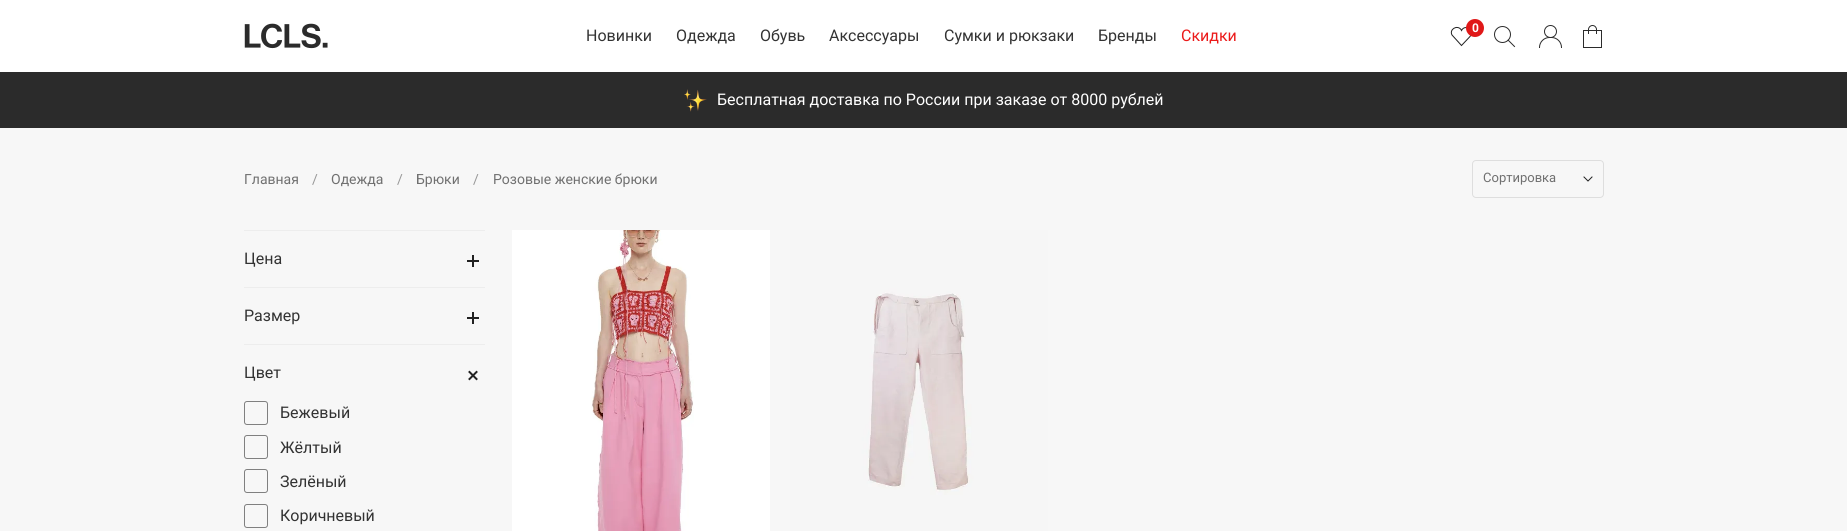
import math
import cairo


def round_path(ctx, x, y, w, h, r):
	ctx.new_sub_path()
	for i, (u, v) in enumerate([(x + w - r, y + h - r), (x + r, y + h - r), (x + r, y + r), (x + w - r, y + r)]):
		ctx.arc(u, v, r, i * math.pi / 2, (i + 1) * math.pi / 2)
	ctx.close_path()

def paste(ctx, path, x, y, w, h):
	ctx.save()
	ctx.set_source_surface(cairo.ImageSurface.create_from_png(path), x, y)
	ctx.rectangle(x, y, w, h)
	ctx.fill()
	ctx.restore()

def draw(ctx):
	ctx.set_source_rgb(0.965, 0.965, 0.965)
	ctx.paint()
	ctx.set_source_rgb(1, 1, 1)
	ctx.rectangle(0, 0, 1847, 72)
	ctx.fill()
	paste(ctx, 'media/1.png', 244, 23, 84, 26)
	ctx.select_font_face('Roboto')
	ctx.set_font_size(16)
	ctx.set_source_rgb(0.2, 0.2, 0.2)
	for x, y, s in [
		(586, 41, 'Новинки'),
		(676, 41, 'Одежда'),
		(760, 41, 'Обувь'),
		(829, 41, 'Аксессуары'),
		(944, 41, 'Сумки и рюкзаки'),
		(1098, 41, 'Бренды'),
	]:
		ctx.move_to(x, y)
		ctx.show_text(s)
	ctx.set_source_rgb(0.918, 0.102, 0.102)
	ctx.move_to(1181, 41)
	ctx.show_text('Скидки')
	ctx.new_path()
	ctx.move_to(1470, 36.5)
	ctx.line_to(1461.5, 45.5)
	ctx.line_to(1452, 35)
	ctx.curve_to(1449, 29.5, 1457, 24.5, 1461, 29.5)
	ctx.line_to(1461.5, 30.5)
	ctx.curve_to(1465, 23.5, 1475.5, 30.5, 1470, 36.5)
	ctx.close_path()
	ctx.set_source_rgb(0.129, 0.129, 0.129)
	ctx.set_line_width(1)
	ctx.set_line_cap(cairo.LINE_CAP_SQUARE)
	ctx.stroke()
	ctx.set_source_rgb(0.878, 0.094, 0.094)
	ctx.arc(1475, 28, 9, 0, 2 * math.pi)
	ctx.fill()
	ctx.select_font_face('Roboto', cairo.FONT_SLANT_NORMAL, cairo.FONT_WEIGHT_BOLD)
	ctx.set_font_size(12)
	ctx.set_source_rgb(1, 1, 1)
	ctx.move_to(1472, 32)
	ctx.show_text('0')
	paste(ctx, 'media/2.png', 1494, 26, 22, 22)
	paste(ctx, 'media/3.png', 1539, 25, 23, 23)
	paste(ctx, 'media/4.png', 1583, 25, 19, 23)
	ctx.set_source_rgb(0.169, 0.169, 0.169)
	ctx.rectangle(0, 72, 1847, 56)
	ctx.fill()
	paste(ctx, 'media/5.png', 684, 89, 23, 23)
	ctx.select_font_face('Roboto')
	ctx.set_font_size(16)
	ctx.set_source_rgb(1, 1, 1)
	ctx.move_to(717, 105)
	ctx.show_text('Бесплатная доставка по России при заказе от 8000 рублей')
	ctx.set_font_size(14)
	ctx.set_source_rgb(0.439, 0.439, 0.439)
	ctx.move_to(244, 184)
	ctx.show_text('Главная')
	ctx.set_source_rgb(0.596, 0.596, 0.596)
	ctx.move_to(312, 184)
	ctx.show_text('/')
	ctx.set_source_rgb(0.439, 0.439, 0.439)
	ctx.move_to(331, 184)
	ctx.show_text('Одежда')
	ctx.set_source_rgb(0.596, 0.596, 0.596)
	ctx.move_to(397, 184)
	ctx.show_text('/')
	ctx.set_source_rgb(0.439, 0.439, 0.439)
	ctx.move_to(416, 184)
	ctx.show_text('Брюки')
	ctx.set_source_rgb(0.596, 0.596, 0.596)
	ctx.move_to(473, 184)
	ctx.show_text('/')
	ctx.set_source_rgb(0.439, 0.439, 0.439)
	ctx.move_to(493, 184)
	ctx.show_text('Розовые женские брюки')
	round_path(ctx, 1472.5, 160.5, 131, 37, 3.5)
	ctx.set_source_rgb(0.871, 0.871, 0.871)
	ctx.set_line_cap(cairo.LINE_CAP_BUTT)
	ctx.stroke()
	ctx.set_font_size(13)
	ctx.set_source_rgb(0.439, 0.439, 0.439)
	ctx.move_to(1483, 182)
	ctx.show_text('Сортировка')
	ctx.new_path()
	ctx.move_to(1592, 177)
	ctx.line_to(1588, 181)
	ctx.line_to(1584, 177)
	ctx.set_source_rgb(0.129, 0.129, 0.129)
	ctx.set_line_cap(cairo.LINE_CAP_SQUARE)
	ctx.stroke()
	ctx.set_source_rgb(0.929, 0.929, 0.929)
	ctx.rectangle(244, 230, 241, 1)
	ctx.fill()
	ctx.rectangle(244, 287, 241, 1)
	ctx.fill()
	ctx.set_font_size(16)
	ctx.set_source_rgb(0.2, 0.2, 0.2)
	ctx.move_to(244, 264)
	ctx.show_text('Цена')
	ctx.set_source_rgb(0.129, 0.129, 0.129)
	ctx.rectangle(472, 255, 2, 12)
	ctx.rectangle(467, 260, 12, 2)
	ctx.fill()
	ctx.set_source_rgb(0.929, 0.929, 0.929)
	ctx.rectangle(244, 344, 241, 1)
	ctx.fill()
	ctx.set_source_rgb(0.2, 0.2, 0.2)
	ctx.move_to(244, 321)
	ctx.show_text('Размер')
	ctx.set_source_rgb(0.129, 0.129, 0.129)
	ctx.rectangle(472, 312, 2, 12)
	ctx.fill()
	ctx.rectangle(467, 317, 12, 2)
	ctx.fill()
	ctx.set_source_rgb(0.2, 0.2, 0.2)
	ctx.move_to(244, 378)
	ctx.show_text('Цвет')
	ctx.new_path()
	ctx.move_to(476.5, 372)
	ctx.line_to(469.5, 379)
	ctx.move_to(476.5, 379)
	ctx.line_to(469.5, 372)
	ctx.set_source_rgb(0.129, 0.129, 0.129)
	ctx.set_line_width(2)
	ctx.stroke()
	round_path(ctx, 244.5, 401.5, 23, 23, 2.5)
	ctx.set_source_rgb(0.502, 0.502, 0.502)
	ctx.set_line_width(1)
	ctx.set_line_cap(cairo.LINE_CAP_BUTT)
	ctx.stroke()
	ctx.set_source_rgb(0.2, 0.2, 0.2)
	ctx.move_to(280, 418)
	ctx.show_text('Бежевый')
	round_path(ctx, 244.5, 435.5, 23, 23, 2.5)
	ctx.set_source_rgb(0.502, 0.502, 0.502)
	ctx.stroke()
	ctx.set_source_rgb(0.2, 0.2, 0.2)
	ctx.move_to(280, 453)
	ctx.show_text('Жёлтый')
	round_path(ctx, 244.5, 469.5, 23, 23, 2.5)
	ctx.set_source_rgb(0.502, 0.502, 0.502)
	ctx.stroke()
	ctx.set_source_rgb(0.2, 0.2, 0.2)
	ctx.move_to(280, 487)
	ctx.show_text('Зелёный')
	round_path(ctx, 244.5, 504.5, 23, 23, 2.5)
	ctx.set_source_rgb(0.502, 0.502, 0.502)
	ctx.stroke()
	ctx.set_source_rgb(0.2, 0.2, 0.2)
	ctx.move_to(280, 521)
	ctx.show_text('Коричневый')
	ctx.set_source_rgb(1, 1, 1)
	ctx.rectangle(512, 230, 258, 301)
	ctx.fill()
	paste(ctx, 'media/6.png', 591, 230, 103, 301)
	paste(ctx, 'media/7.png', 790, 230, 258, 301)


surface = cairo.ImageSurface(cairo.FORMAT_RGB24, 1847, 531)
ctx = cairo.Context(surface)
options = cairo.FontOptions()
options.set_hint_metrics(cairo.HINT_METRICS_OFF)
options.set_hint_style(cairo.HINT_STYLE_NONE)
ctx.set_font_options(options)
ctx.set_miter_limit(4)
draw(ctx)
surface.write_to_png('image.png')
